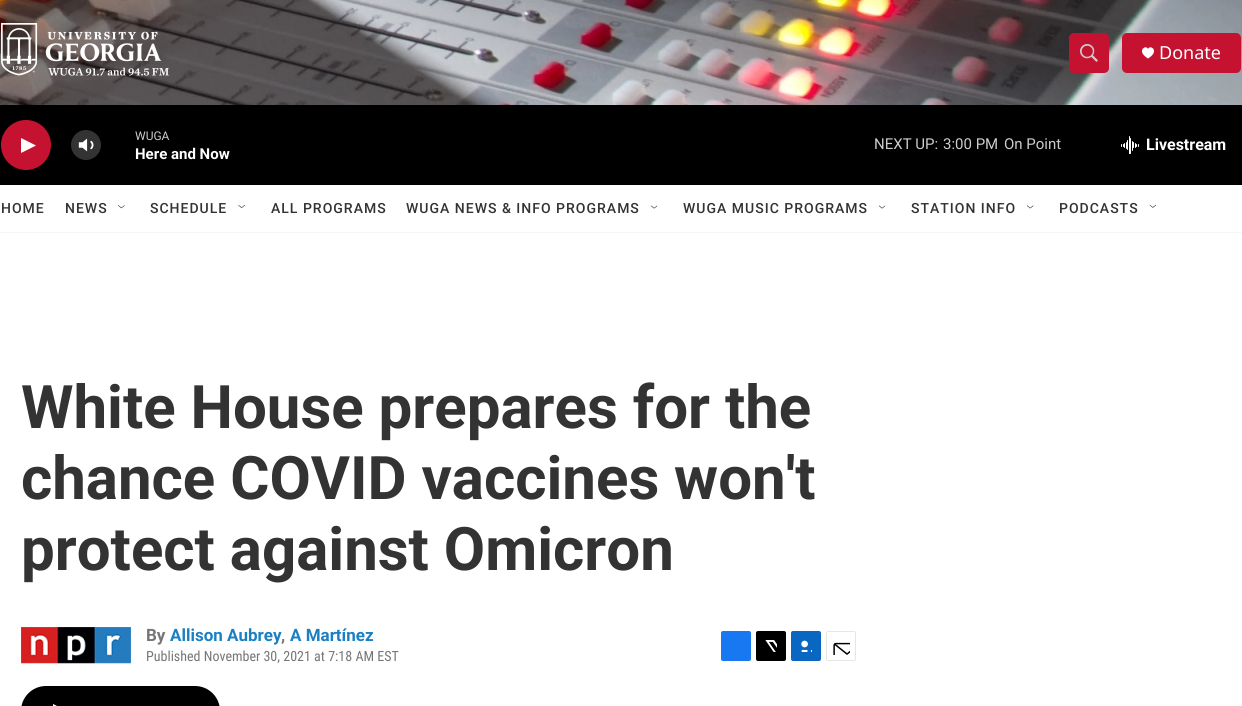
import math
import cairo


def write_spaced(ctx, x, y, s, letter, word):
	ctx.move_to(x, y)
	for ch in s:
		ctx.show_text(ch)
		ctx.rel_move_to(letter + word * (ch == ' '), 0)

def round_path(ctx, x, y, w, h, r):
	ctx.new_sub_path()
	for i, (u, v) in enumerate([(x + w - r, y + h - r), (x + r, y + h - r), (x + r, y + r), (x + w - r, y + r)]):
		ctx.arc(u, v, r, i * math.pi / 2, (i + 1) * math.pi / 2)
	ctx.close_path()

def paste(ctx, path, x, y, w, h):
	ctx.save()
	ctx.set_source_surface(cairo.ImageSurface.create_from_png(path), x, y)
	ctx.rectangle(x, y, w, h)
	ctx.fill()
	ctx.restore()

def draw(ctx):
	ctx.set_source_rgb(1, 1, 1)
	ctx.paint()
	ctx.set_source_rgb(0.961, 0.961, 0.961)
	ctx.rectangle(0, 232, 1242, 1)
	ctx.fill()
	paste(ctx, 'media/1.png', 0, 0, 1242, 105)
	paste(ctx, 'media/2.png', 1, 23, 168, 53)
	ctx.set_source_rgb(0.769, 0.071, 0.188)
	round_path(ctx, 1069, 33, 40, 40, 5)
	ctx.fill()
	paste(ctx, 'media/3.png', 1080, 44, 18, 18)
	round_path(ctx, 1122, 33, 119, 40, 5)
	ctx.fill()
	ctx.set_source_rgb(1, 1, 1)
	ctx.new_path()
	ctx.move_to(1148, 49)
	ctx.curve_to(1146, 44, 1135.5, 51, 1148, 58.5)
	ctx.curve_to(1160.5, 51, 1150, 44, 1148, 49)
	ctx.close_path()
	ctx.fill()
	ctx.select_font_face('Noto Sans')
	ctx.set_font_size(18)
	ctx.move_to(1159, 59)
	ctx.show_text('Donate')
	ctx.set_source_rgb(0, 0, 0)
	ctx.rectangle(0, 105, 1242, 80)
	ctx.fill()
	ctx.set_source_rgb(0.769, 0.071, 0.188)
	ctx.arc(26, 145, 25, 0, 2 * math.pi)
	ctx.fill()
	ctx.set_source_rgb(1, 1, 1)
	ctx.new_path()
	ctx.move_to(21, 138)
	ctx.line_to(36, 145.5)
	ctx.line_to(21, 153)
	ctx.close_path()
	ctx.fill()
	paste(ctx, 'media/4.png', 78, 138, 16, 14)
	ctx.set_source_rgba(1, 1, 1, 0.2)
	ctx.arc(86, 145, 15, 0, 2 * math.pi)
	ctx.fill()
	ctx.select_font_face('Roboto')
	ctx.set_font_size(12)
	ctx.set_source_rgb(0.8, 0.8, 0.8)
	ctx.move_to(135, 140)
	ctx.show_text('WUGA')
	ctx.select_font_face('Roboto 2', cairo.FONT_SLANT_NORMAL, cairo.FONT_WEIGHT_BOLD)
	ctx.set_font_size(15)
	ctx.set_source_rgb(1, 1, 1)
	ctx.move_to(135, 159)
	ctx.show_text('Here and Now')
	ctx.select_font_face('Roboto')
	ctx.set_source_rgb(0.8, 0.8, 0.8)
	for x, y, s in [
		(874, 149, 'NEXT UP:'),
		(943, 149, '3:00 PM'),
		(1004, 149, 'On Point'),
	]:
		ctx.move_to(x, y)
		ctx.show_text(s)
	paste(ctx, 'media/5.png', 1121, 136, 18, 18)
	ctx.select_font_face('Roboto 2', cairo.FONT_SLANT_NORMAL, cairo.FONT_WEIGHT_BOLD)
	ctx.set_font_size(16)
	ctx.set_source_rgb(1, 1, 1)
	ctx.move_to(1146, 150)
	ctx.show_text('Livestream')
	ctx.select_font_face('Roboto Medium')
	ctx.set_font_size(14)
	ctx.set_source_rgb(0.2, 0.2, 0.2)
	write_spaced(ctx, 1, 213, 'HOME', 1, 0)
	write_spaced(ctx, 65, 213, 'NEWS', 1, 0)
	paste(ctx, 'media/6.png', 118, 205, 7, 4)
	write_spaced(ctx, 150, 213, 'SCHEDULE', 1, 0)
	paste(ctx, 'media/7.png', 238, 204, 7, 4)
	write_spaced(ctx, 271, 213, 'ALL PROGRAMS', 1, 0)
	write_spaced(ctx, 406, 213, 'WUGA NEWS & INFO PROGRAMS', 1, 0)
	paste(ctx, 'media/8.png', 650, 205, 8, 4)
	write_spaced(ctx, 683, 213, 'WUGA MUSIC PROGRAMS', 1, 0)
	paste(ctx, 'media/8.png', 878, 205, 8, 4)
	write_spaced(ctx, 911, 213, 'STATION INFO', 1, 0)
	paste(ctx, 'media/9.png', 1027, 205, 7, 4)
	write_spaced(ctx, 1059, 213, 'PODCASTS', 1, 0)
	paste(ctx, 'media/10.png', 1149, 204, 7, 4)
	ctx.select_font_face('Roboto', cairo.FONT_SLANT_NORMAL, cairo.FONT_WEIGHT_BOLD)
	ctx.set_font_size(60)
	for x, y, s in [
		(21, 428, 'White House prepares for the'),
		(21, 499, 'chance COVID vaccines won\'t'),
		(21, 570, 'protect against Omicron'),
	]:
		ctx.move_to(x, y)
		ctx.show_text(s)
	paste(ctx, 'media/11.png', 21, 627, 110, 37)
	ctx.set_font_size(17)
	ctx.set_source_rgb(0.463, 0.463, 0.463)
	ctx.move_to(146, 641)
	ctx.show_text('By')
	ctx.set_source_rgb(0.102, 0.498, 0.765)
	ctx.move_to(170, 641)
	ctx.show_text('Allison Aubrey')
	ctx.set_source_rgb(0.463, 0.463, 0.463)
	ctx.move_to(281, 641)
	ctx.show_text(',')
	ctx.set_source_rgb(0.102, 0.498, 0.765)
	ctx.move_to(290, 641)
	ctx.show_text('A Martínez')
	ctx.select_font_face('Roboto Condensed')
	ctx.set_font_size(14)
	ctx.set_source_rgb(0.463, 0.463, 0.463)
	ctx.move_to(146, 661)
	ctx.show_text('Published November 30, 2021 at 7:18 AM EST')
	ctx.set_source_rgb(0.09, 0.471, 0.949)
	round_path(ctx, 721, 631, 30, 30, 2)
	ctx.fill()
	ctx.set_source_rgb(0, 0, 0)
	round_path(ctx, 756, 631, 30, 30, 2)
	ctx.fill()
	paste(ctx, 'media/12.png', 765, 640, 12, 12)
	ctx.set_source_rgb(0.039, 0.4, 0.757)
	round_path(ctx, 791, 631, 30, 30, 2)
	ctx.fill()
	paste(ctx, 'media/13.png', 801, 640, 11, 12)
	round_path(ctx, 826.5, 631.5, 29, 29, 1.5)
	ctx.set_source_rgb(0.902, 0.902, 0.902)
	ctx.set_line_width(1)
	ctx.stroke()
	paste(ctx, 'media/14.png', 833, 642, 17, 13)
	ctx.set_source_rgb(0, 0, 0)
	round_path(ctx, 21, 686, 199, 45, 25)
	ctx.fill()
	ctx.set_source_rgb(1, 1, 1)
	ctx.new_path()
	ctx.move_to(53, 704)
	ctx.line_to(69, 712)
	ctx.line_to(53, 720)
	ctx.close_path()
	ctx.fill()


surface = cairo.ImageSurface(cairo.FORMAT_RGB24, 1242, 706)
ctx = cairo.Context(surface)
options = cairo.FontOptions()
options.set_hint_metrics(cairo.HINT_METRICS_OFF)
options.set_hint_style(cairo.HINT_STYLE_NONE)
ctx.set_font_options(options)
ctx.set_miter_limit(4)
draw(ctx)
surface.write_to_png('image.png')
